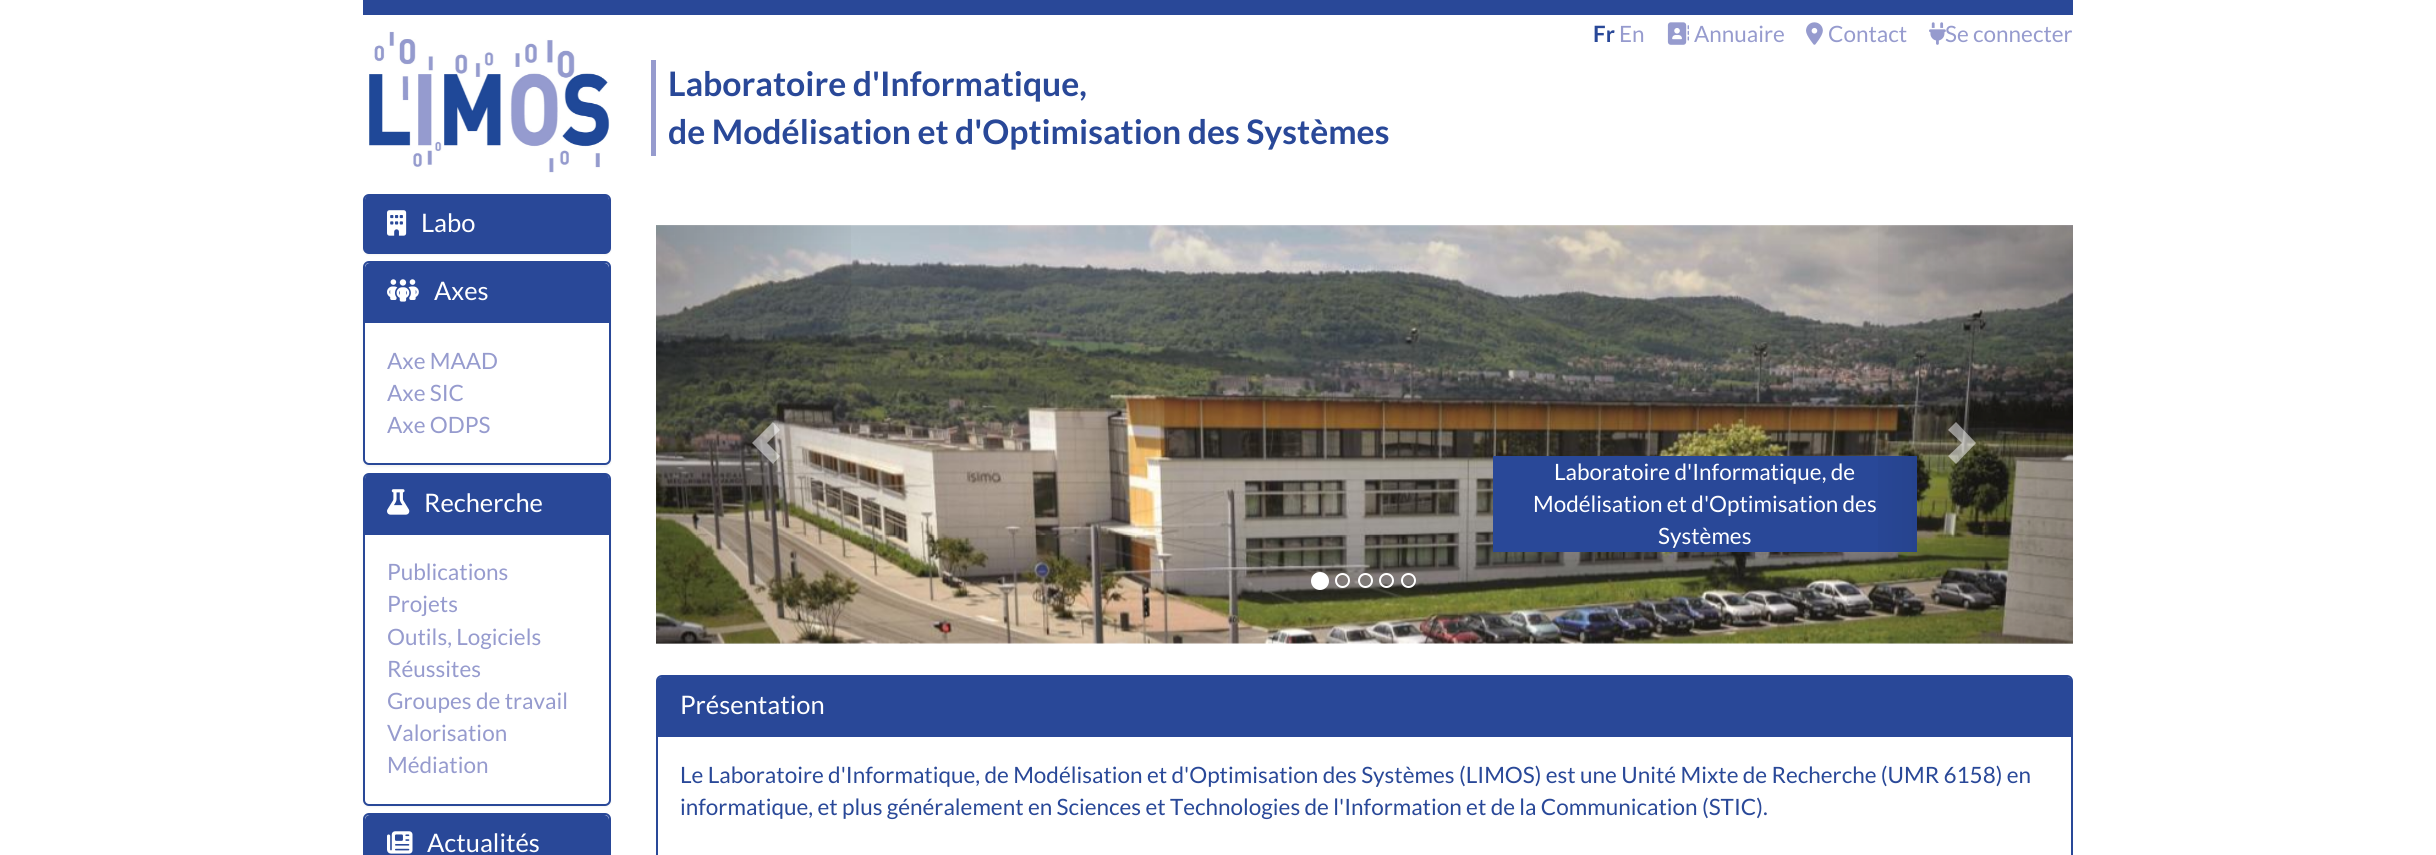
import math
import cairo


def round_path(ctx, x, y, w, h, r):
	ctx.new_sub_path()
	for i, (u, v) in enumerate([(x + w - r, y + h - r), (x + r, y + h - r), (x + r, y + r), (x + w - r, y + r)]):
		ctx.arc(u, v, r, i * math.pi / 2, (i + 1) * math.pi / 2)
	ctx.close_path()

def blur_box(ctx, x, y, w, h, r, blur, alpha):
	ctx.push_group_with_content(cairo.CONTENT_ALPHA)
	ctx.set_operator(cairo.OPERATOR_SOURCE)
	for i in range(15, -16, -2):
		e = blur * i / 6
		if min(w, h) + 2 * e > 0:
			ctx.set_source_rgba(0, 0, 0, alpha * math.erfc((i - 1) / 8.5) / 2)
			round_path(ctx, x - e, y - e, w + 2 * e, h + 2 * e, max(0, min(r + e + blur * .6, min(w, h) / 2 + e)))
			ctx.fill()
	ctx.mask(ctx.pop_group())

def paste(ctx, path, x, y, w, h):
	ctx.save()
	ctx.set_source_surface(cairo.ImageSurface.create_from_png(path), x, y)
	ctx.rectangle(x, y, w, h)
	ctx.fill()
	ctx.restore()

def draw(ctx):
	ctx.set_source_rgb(1, 1, 1)
	ctx.paint()
	ctx.set_source_rgb(0.161, 0.282, 0.596)
	ctx.rectangle(363, 0, 1710, 15)
	ctx.fill()
	paste(ctx, 'media/1.png', 369, 31, 241, 142)
	ctx.set_source_rgb(0.588, 0.608, 0.808)
	ctx.rectangle(651, 60, 5, 96)
	ctx.fill()
	ctx.select_font_face('Lato', cairo.FONT_SLANT_NORMAL, cairo.FONT_WEIGHT_BOLD)
	ctx.set_font_size(33.75)
	ctx.set_source_rgb(0.161, 0.282, 0.596)
	ctx.move_to(668, 96)
	ctx.show_text('Laboratoire d\'Informatique,')
	ctx.move_to(668, 144)
	ctx.show_text('de Modélisation et d\'Optimisation des Systèmes')
	ctx.set_font_size(22.5)
	ctx.move_to(1593, 42)
	ctx.show_text('Fr')
	ctx.select_font_face('Lato')
	ctx.set_source_rgb(0.588, 0.608, 0.808)
	ctx.move_to(1619, 42)
	ctx.show_text('En')
	paste(ctx, 'media/2.png', 1667, 22, 22, 23)
	ctx.move_to(1694, 42)
	ctx.show_text('Annuaire')
	paste(ctx, 'media/3.png', 1806, 22, 17, 23)
	ctx.move_to(1828, 42)
	ctx.show_text('Contact')
	paste(ctx, 'media/4.png', 1929, 22, 17, 23)
	ctx.move_to(1945, 42)
	ctx.show_text('Se connecter')
	ctx.set_source_rgb(0, 0, 0)
	blur_box(ctx, 363, 195, 248, 60, 6, 1, 0.05)
	round_path(ctx, 364, 195, 246, 58, 5)
	ctx.set_source_rgb(0.161, 0.282, 0.596)
	ctx.stroke()
	ctx.new_path()
	ctx.move_to(370, 195)
	ctx.line_to(604, 195)
	ctx.curve_to(607, 195, 609, 197, 609, 200)
	ctx.line_to(609, 252)
	ctx.line_to(365, 252)
	ctx.line_to(365, 200)
	ctx.curve_to(365, 197, 367, 195, 370, 195)
	ctx.close_path()
	ctx.fill()
	paste(ctx, 'media/5.png', 387, 210, 20, 26)
	ctx.set_font_size(25.5)
	ctx.set_source_rgb(1, 1, 1)
	ctx.move_to(421, 232)
	ctx.show_text('Labo')
	ctx.set_source_rgb(0, 0, 0)
	blur_box(ctx, 363, 263, 248, 204, 6, 1, 0.05)
	ctx.set_source_rgb(1, 1, 1)
	round_path(ctx, 364, 262, 246, 202, 5)
	ctx.fill_preserve()
	ctx.set_source_rgb(0.161, 0.282, 0.596)
	ctx.stroke()
	ctx.new_path()
	ctx.move_to(370, 263)
	ctx.line_to(604, 263)
	ctx.curve_to(607, 263, 609, 265, 609, 268)
	ctx.line_to(609, 321)
	ctx.line_to(365, 321)
	ctx.line_to(365, 268)
	ctx.curve_to(365, 265, 367, 263, 370, 263)
	ctx.close_path()
	ctx.fill()
	paste(ctx, 'media/6.png', 387, 279, 32, 23)
	ctx.set_source_rgb(1, 1, 1)
	ctx.move_to(434, 300)
	ctx.show_text('Axes')
	ctx.set_source_rgb(0.161, 0.282, 0.596)
	ctx.rectangle(365, 321, 244, 2)
	ctx.fill()
	ctx.set_font_size(22.5)
	ctx.set_source_rgb(0.588, 0.608, 0.808)
	for x, y, s in [
		(387, 369, 'Axe MAAD'),
		(387, 401, 'Axe SIC'),
		(387, 433, 'Axe ODPS'),
	]:
		ctx.move_to(x, y)
		ctx.show_text(s)
	ctx.set_source_rgb(0, 0, 0)
	blur_box(ctx, 363, 474, 248, 333, 6, 1, 0.05)
	ctx.set_source_rgb(1, 1, 1)
	round_path(ctx, 364, 474, 246, 331, 5)
	ctx.fill_preserve()
	ctx.set_source_rgb(0.161, 0.282, 0.596)
	ctx.stroke()
	ctx.new_path()
	ctx.move_to(370, 474)
	ctx.line_to(604, 474)
	ctx.curve_to(607, 474, 609, 476, 609, 479)
	ctx.line_to(609, 533)
	ctx.line_to(365, 533)
	ctx.line_to(365, 479)
	ctx.curve_to(365, 476, 367, 474, 370, 474)
	ctx.close_path()
	ctx.fill()
	paste(ctx, 'media/7.png', 387, 489, 23, 26)
	ctx.set_font_size(25.5)
	ctx.set_source_rgb(1, 1, 1)
	ctx.move_to(424, 512)
	ctx.show_text('Recherche')
	ctx.set_source_rgb(0.161, 0.282, 0.596)
	ctx.rectangle(365, 533, 244, 2)
	ctx.fill()
	ctx.set_font_size(22.5)
	ctx.set_source_rgb(0.588, 0.608, 0.808)
	for x, y, s in [
		(387, 580, 'Publications'),
		(387, 612, 'Projets'),
		(387, 645, 'Outils, Logiciels'),
		(387, 677, 'Réussites'),
		(387, 709, 'Groupes de travail'),
		(387, 741, 'Valorisation'),
		(387, 773, 'Médiation'),
	]:
		ctx.move_to(x, y)
		ctx.show_text(s)
	round_path(ctx, 364, 814, 246, 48, 5)
	ctx.set_source_rgb(0.161, 0.282, 0.596)
	ctx.stroke()
	ctx.new_path()
	ctx.move_to(370, 815)
	ctx.line_to(604, 815)
	ctx.curve_to(607, 815, 609, 817, 609, 820)
	ctx.line_to(609, 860)
	ctx.line_to(365, 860)
	ctx.line_to(365, 820)
	ctx.curve_to(365, 817, 367, 815, 370, 815)
	ctx.close_path()
	ctx.fill()
	paste(ctx, 'media/8.png', 387, 831, 26, 23)
	ctx.set_font_size(25.5)
	ctx.set_source_rgb(1, 1, 1)
	ctx.move_to(427, 852)
	ctx.show_text('Actualités')
	paste(ctx, 'media/9.png', 656, 225, 1417, 419)
	gradient = cairo.LinearGradient(656, 434, 869, 434)
	gradient.add_color_stop_rgba(0, 0, 0, 0, 0.25)
	gradient.add_color_stop_rgba(1, 0, 0, 0, 0)
	ctx.set_source(gradient)
	ctx.rectangle(656, 225, 195, 419)
	ctx.fill()
	ctx.set_source_rgba(1, 1, 1, 0.5)
	ctx.new_path()
	ctx.move_to(780, 430)
	ctx.line_to(767, 443)
	ctx.line_to(780, 456)
	ctx.line_to(773, 464)
	ctx.line_to(752, 443)
	ctx.line_to(773, 422)
	ctx.close_path()
	ctx.fill()
	ctx.set_source_rgb(0.161, 0.282, 0.596)
	ctx.rectangle(1493, 456, 424, 96)
	ctx.fill()
	ctx.set_font_size(22.5)
	ctx.set_source_rgb(1, 1, 1)
	for x, y, s in [
		(1554, 480, 'Laboratoire d\'Informatique, de'),
		(1533, 512, 'Modélisation et d\'Optimisation des'),
		(1658, 544, 'Systèmes'),
	]:
		ctx.move_to(x, y)
		ctx.show_text(s)
	gradient = cairo.LinearGradient(1860, 434, 2073, 434)
	gradient.add_color_stop_rgba(0, 0, 0, 0, 0)
	gradient.add_color_stop_rgba(1, 0, 0, 0, 0.25)
	ctx.set_source(gradient)
	ctx.rectangle(1878, 225, 195, 419)
	ctx.fill()
	ctx.set_source_rgba(1, 1, 1, 0.5)
	ctx.new_path()
	ctx.move_to(1976, 443)
	ctx.line_to(1956, 464)
	ctx.line_to(1948, 456)
	ctx.line_to(1962, 443)
	ctx.line_to(1948, 430)
	ctx.line_to(1956, 422)
	ctx.close_path()
	ctx.fill()
	ctx.set_source_rgb(1, 1, 1)
	ctx.arc(1320, 581, 8, 0, 2 * math.pi)
	ctx.fill_preserve()
	ctx.stroke()
	ctx.arc(1342.5, 580.5, 6.5, 0, 2 * math.pi)
	ctx.stroke()
	ctx.arc(1365.5, 580.5, 6.5, 0, 2 * math.pi)
	ctx.stroke()
	ctx.arc(1386.5, 580.5, 6.5, 0, 2 * math.pi)
	ctx.stroke()
	ctx.arc(1408.5, 580.5, 6.5, 0, 2 * math.pi)
	ctx.stroke()
	round_path(ctx, 657, 676, 1415, 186, 5)
	ctx.set_source_rgb(0.161, 0.282, 0.596)
	ctx.stroke()
	ctx.new_path()
	ctx.move_to(662, 677)
	ctx.line_to(2067, 677)
	ctx.curve_to(2070, 677, 2072, 679, 2072, 682)
	ctx.line_to(2072, 737)
	ctx.line_to(657, 737)
	ctx.line_to(657, 682)
	ctx.curve_to(657, 679, 659, 677, 662, 677)
	ctx.close_path()
	ctx.fill()
	ctx.set_font_size(25.5)
	ctx.set_source_rgb(1, 1, 1)
	ctx.move_to(680, 714)
	ctx.show_text('Présentation')
	ctx.set_font_size(22.5)
	ctx.set_source_rgb(0.161, 0.282, 0.596)
	ctx.move_to(680, 783)
	ctx.show_text('Le Laboratoire d\'Informatique, de Modélisation et d\'Optimisation des Systèmes (LIMOS) est une Unité Mixte de Recherche (UMR 6158) en')
	ctx.move_to(680, 815)
	ctx.show_text('informatique, et plus généralement en Sciences et Technologies de l\'Information et de la Communication (STIC).')


surface = cairo.ImageSurface(cairo.FORMAT_RGB24, 2436, 855)
ctx = cairo.Context(surface)
options = cairo.FontOptions()
options.set_hint_metrics(cairo.HINT_METRICS_OFF)
options.set_hint_style(cairo.HINT_STYLE_NONE)
ctx.set_font_options(options)
ctx.set_miter_limit(4)
draw(ctx)
surface.write_to_png('image.png')
